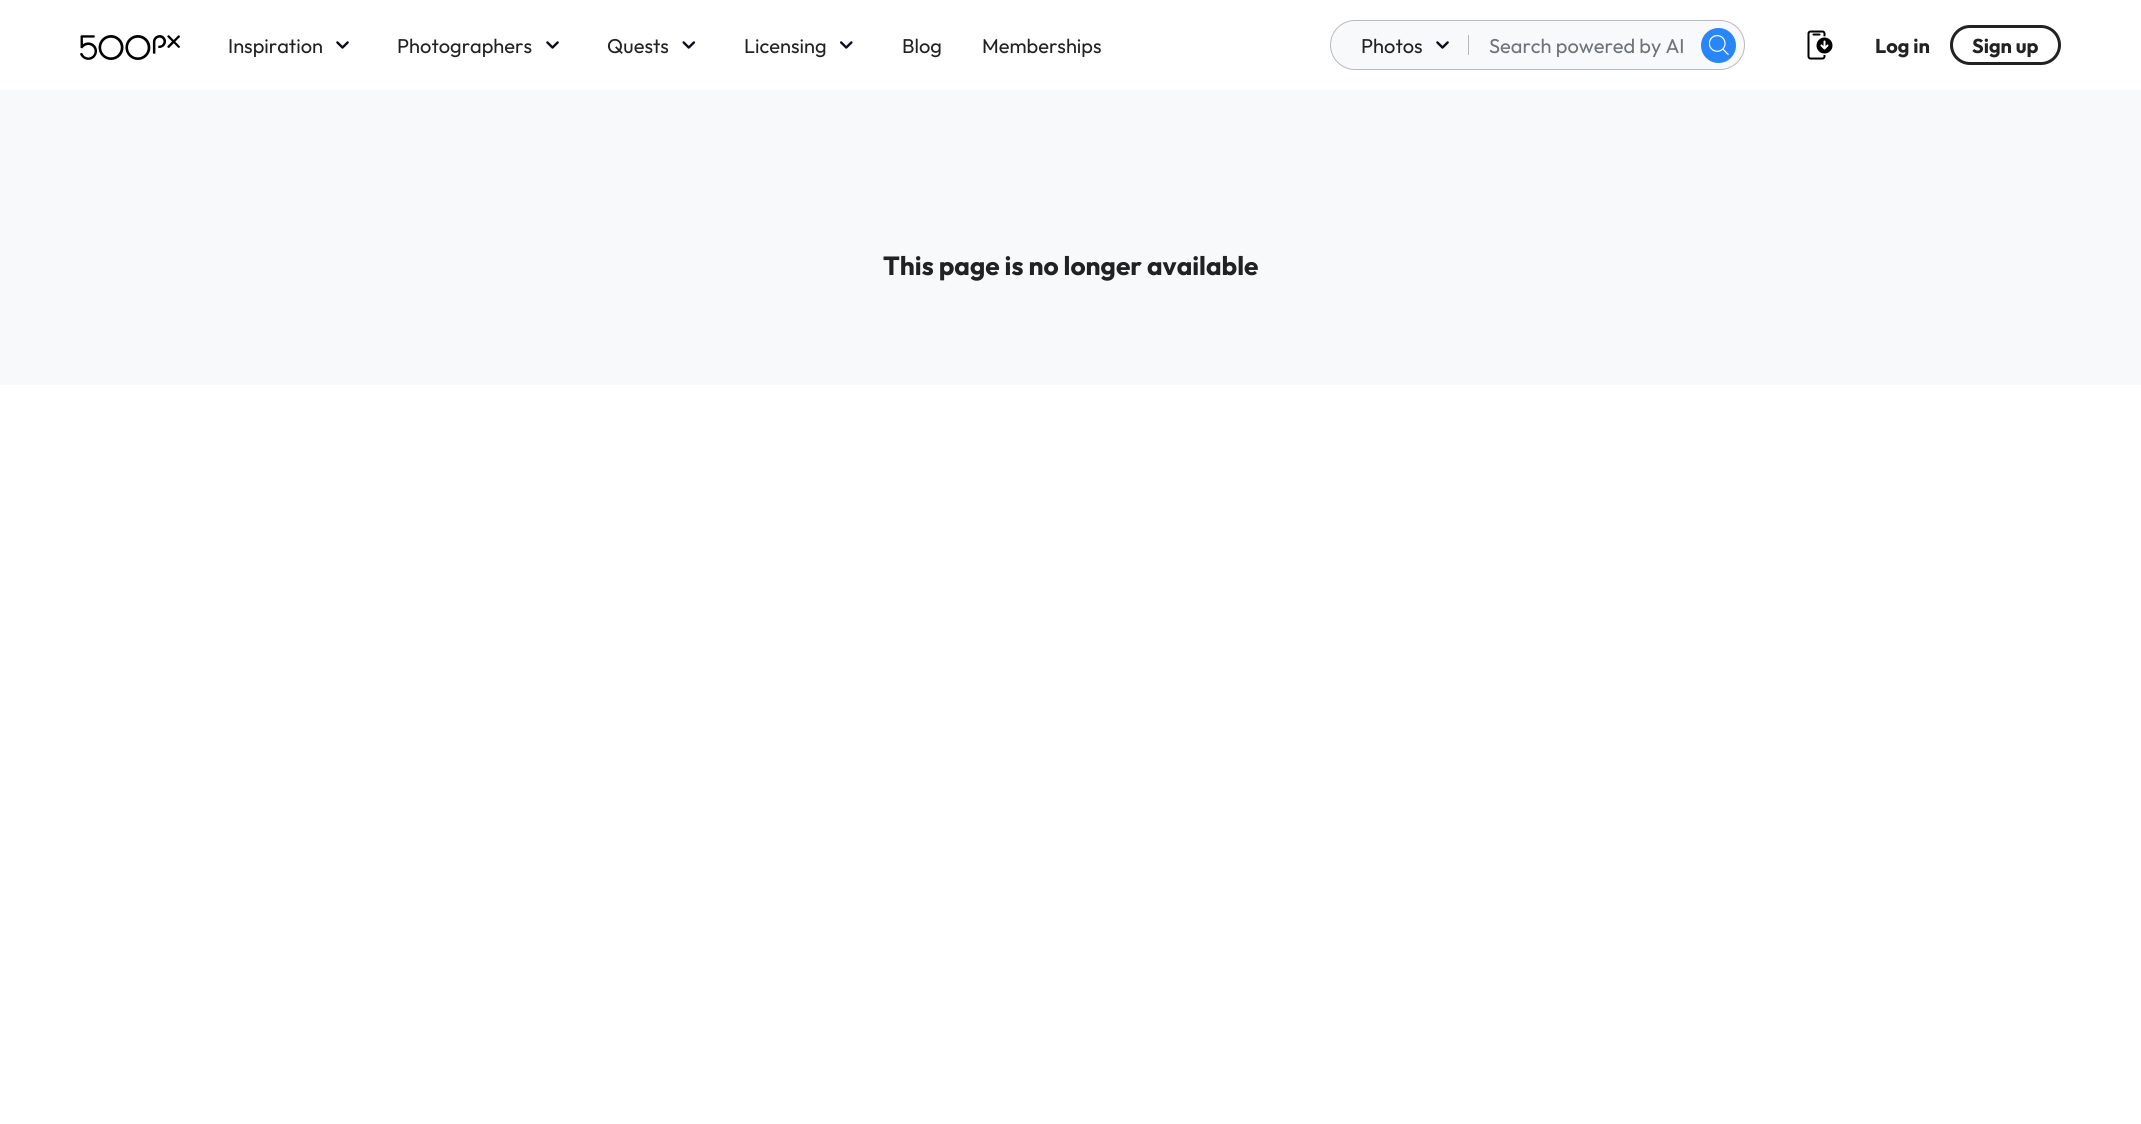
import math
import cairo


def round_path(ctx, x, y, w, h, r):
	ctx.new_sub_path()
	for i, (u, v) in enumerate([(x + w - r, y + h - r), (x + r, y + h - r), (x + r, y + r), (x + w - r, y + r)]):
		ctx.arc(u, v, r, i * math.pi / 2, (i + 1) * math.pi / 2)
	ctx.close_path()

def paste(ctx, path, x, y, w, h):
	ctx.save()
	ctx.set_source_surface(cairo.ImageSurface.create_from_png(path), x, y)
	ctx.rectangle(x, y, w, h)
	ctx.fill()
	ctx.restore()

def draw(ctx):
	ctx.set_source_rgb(1, 1, 1)
	ctx.paint()
	paste(ctx, 'media/1.png', 80, 35, 100, 25)
	ctx.select_font_face('Outfit')
	ctx.set_font_size(20)
	ctx.set_source_rgb(0.133, 0.133, 0.133)
	ctx.move_to(228, 53)
	ctx.show_text('Inspiration')
	paste(ctx, 'media/2.png', 336, 41, 13, 8)
	ctx.move_to(397, 53)
	ctx.show_text('Photographers')
	paste(ctx, 'media/2.png', 546, 41, 13, 8)
	ctx.move_to(607, 53)
	ctx.show_text('Quests')
	paste(ctx, 'media/3.png', 682, 41, 14, 8)
	ctx.move_to(744, 53)
	ctx.show_text('Licensing')
	paste(ctx, 'media/4.png', 840, 41, 13, 8)
	ctx.move_to(902, 53)
	ctx.show_text('Blog')
	ctx.move_to(982, 53)
	ctx.show_text('Memberships')
	ctx.set_source_rgb(0.969, 0.973, 0.98)
	round_path(ctx, 1330.5, 20.5, 414, 49, 24.5)
	ctx.fill_preserve()
	ctx.set_source_rgb(0.725, 0.729, 0.745)
	ctx.set_line_width(1)
	ctx.stroke()
	ctx.set_source_rgb(0.133, 0.133, 0.133)
	ctx.move_to(1361, 53)
	ctx.show_text('Photos')
	paste(ctx, 'media/5.png', 1436, 41, 13, 8)
	ctx.set_source_rgb(0.714, 0.725, 0.733)
	ctx.rectangle(1468, 35, 1, 20)
	ctx.fill()
	ctx.set_source_rgb(0.427, 0.451, 0.471)
	ctx.move_to(1489, 53)
	ctx.show_text('Search powered by AI')
	ctx.set_source_rgb(0.161, 0.525, 0.969)
	ctx.new_path()
	ctx.arc(1718.5, 45.5, 17.5, 0, 2 * math.pi)
	ctx.fill()
	paste(ctx, 'media/6.png', 1709, 35, 20, 20)
	paste(ctx, 'media/7.png', 1807, 30, 26, 30)
	ctx.select_font_face('Outfit', cairo.FONT_SLANT_NORMAL, cairo.FONT_WEIGHT_BOLD)
	ctx.set_source_rgb(0.133, 0.133, 0.133)
	ctx.move_to(1875, 53)
	ctx.show_text('Log in')
	round_path(ctx, 1951.5, 26.5, 108, 37, 18.5)
	ctx.set_line_width(3)
	ctx.stroke()
	ctx.move_to(1972, 53)
	ctx.show_text('Sign up')
	ctx.set_source_rgb(0.969, 0.973, 0.98)
	ctx.rectangle(0, 90, 2141, 295)
	ctx.fill()
	ctx.set_font_size(26.25)
	ctx.set_source_rgb(0.133, 0.133, 0.133)
	ctx.move_to(883, 275)
	ctx.show_text('This page is no longer available')


surface = cairo.ImageSurface(cairo.FORMAT_RGB24, 2141, 1124)
ctx = cairo.Context(surface)
options = cairo.FontOptions()
options.set_hint_metrics(cairo.HINT_METRICS_OFF)
options.set_hint_style(cairo.HINT_STYLE_NONE)
ctx.set_font_options(options)
ctx.set_miter_limit(4)
draw(ctx)
surface.write_to_png('image.png')
